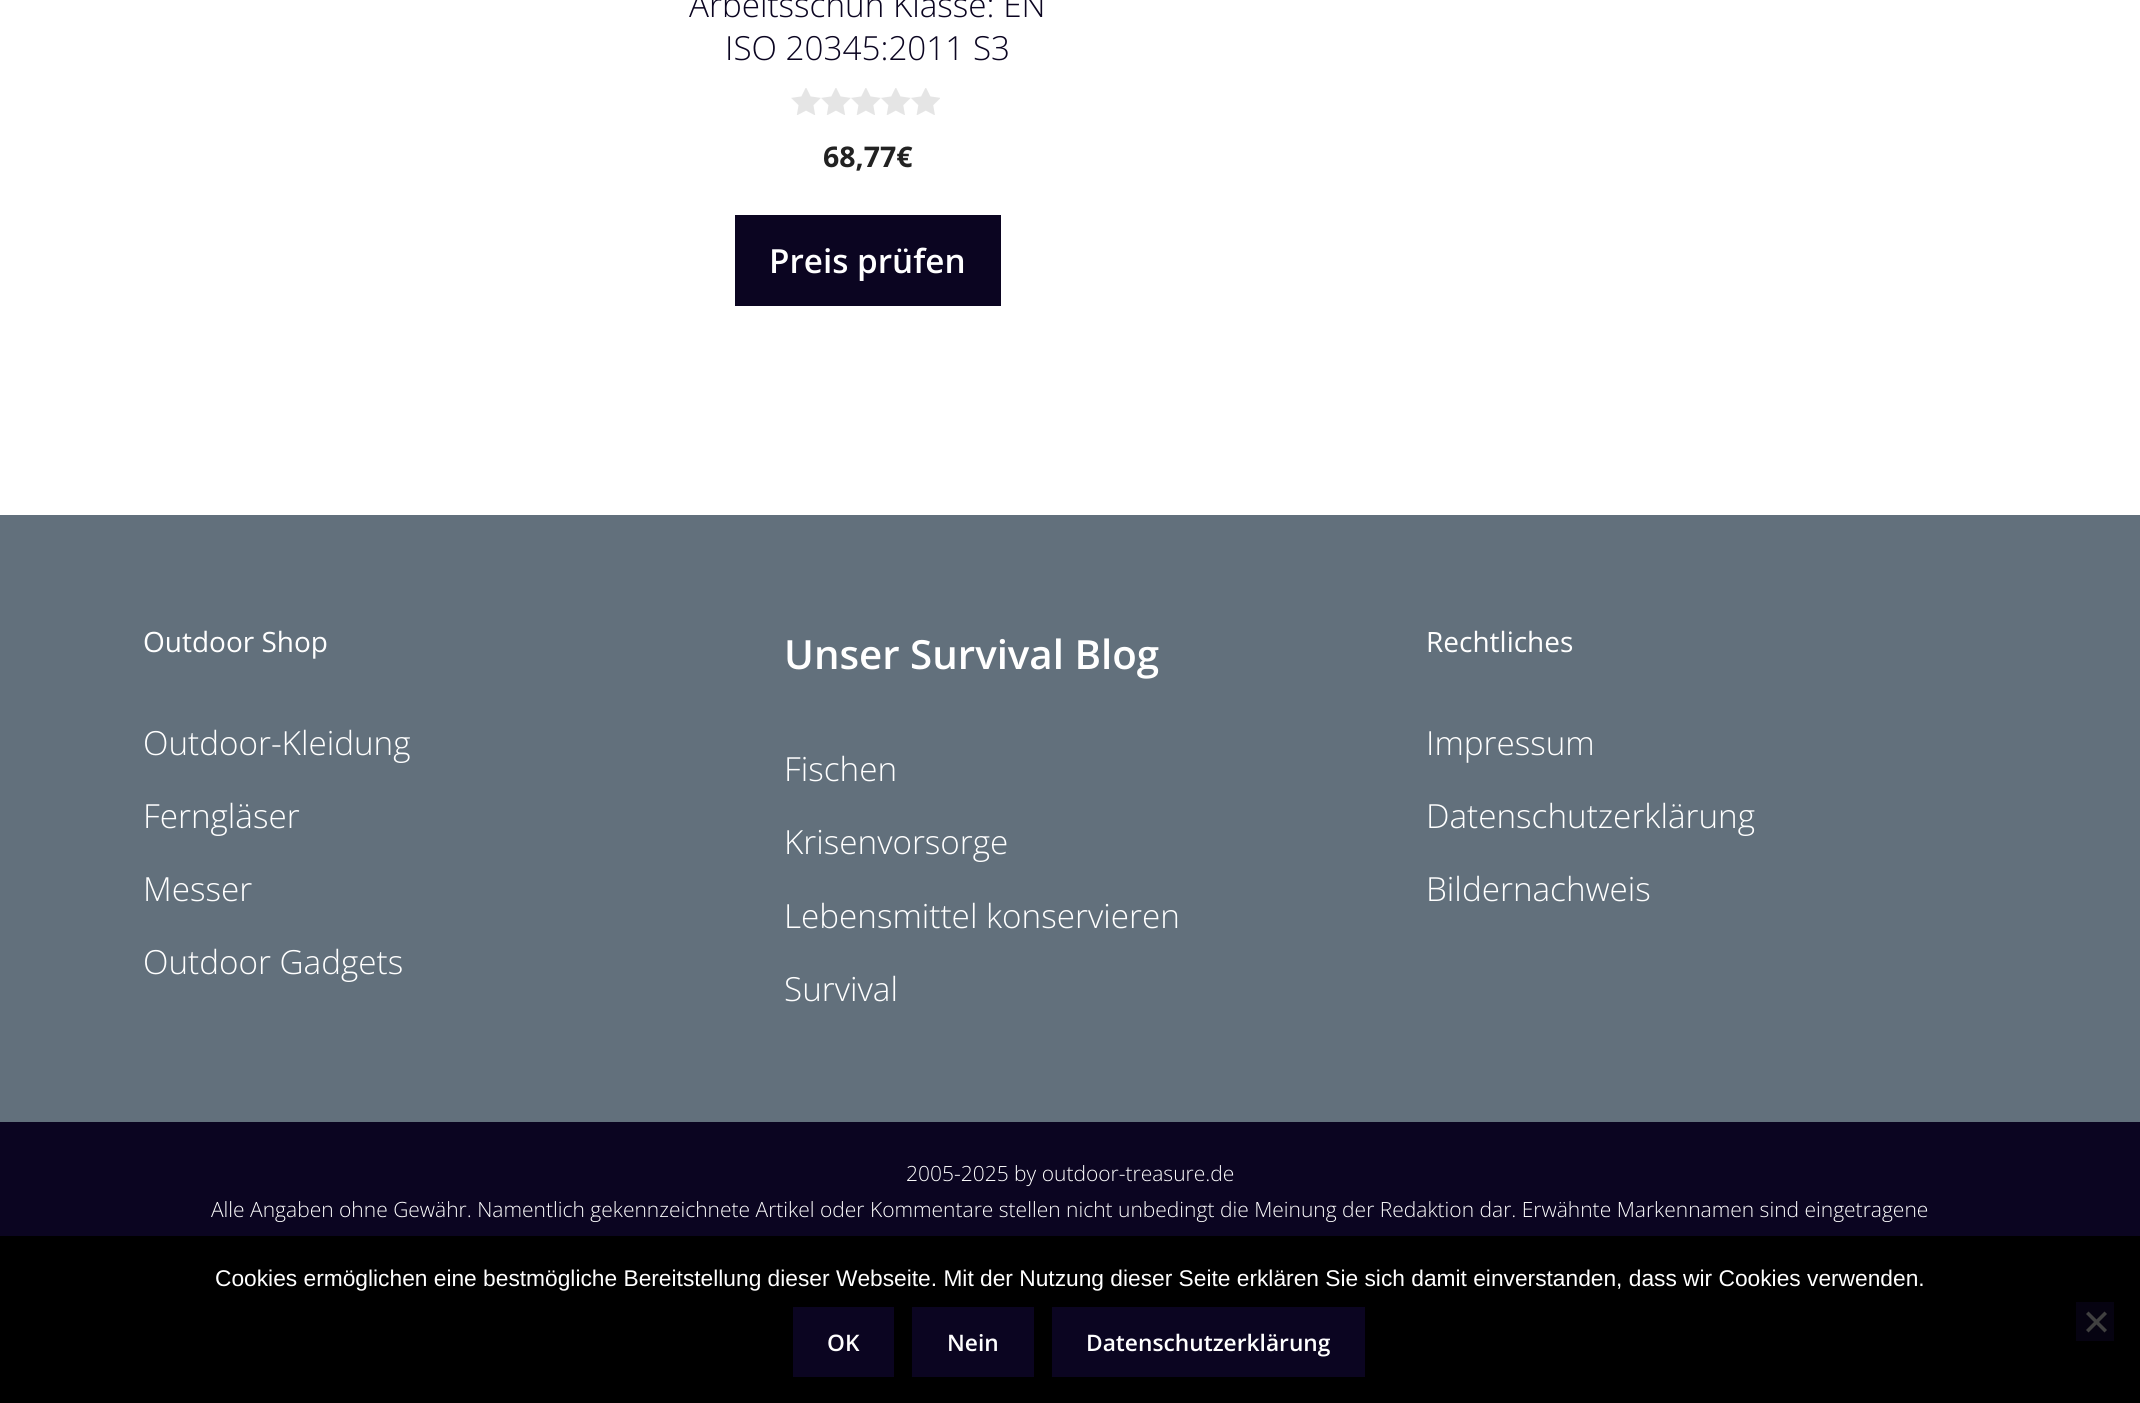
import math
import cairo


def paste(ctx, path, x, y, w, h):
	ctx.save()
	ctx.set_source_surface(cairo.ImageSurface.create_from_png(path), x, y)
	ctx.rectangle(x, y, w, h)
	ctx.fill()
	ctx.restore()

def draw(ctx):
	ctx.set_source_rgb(1, 1, 1)
	ctx.paint()
	ctx.select_font_face('Open Sans Light')
	ctx.set_font_size(33.25)
	ctx.set_source_rgb(0.043, 0.02, 0.129)
	ctx.move_to(689, 17)
	ctx.show_text('Arbeitsschuh Klasse: EN')
	ctx.move_to(725, 60)
	ctx.show_text('ISO 20345:2011 S3')
	paste(ctx, 'media/1.png', 791, 88, 149, 27)
	ctx.select_font_face('Open Sans', cairo.FONT_SLANT_NORMAL, cairo.FONT_WEIGHT_BOLD)
	ctx.set_font_size(28.5)
	ctx.set_source_rgb(0.133, 0.133, 0.133)
	ctx.move_to(823, 167)
	ctx.show_text('68,77€')
	ctx.set_source_rgb(0.043, 0.02, 0.129)
	ctx.rectangle(735, 215, 266, 91)
	ctx.fill()
	ctx.select_font_face('Open Sans SemiBold')
	ctx.set_font_size(33.25)
	ctx.set_source_rgb(1, 1, 1)
	ctx.move_to(769, 273)
	ctx.show_text('Preis prüfen')
	ctx.set_source_rgb(0.384, 0.439, 0.486)
	ctx.rectangle(0, 515, 2140, 607)
	ctx.fill()
	ctx.select_font_face('Open Sans')
	ctx.set_font_size(28)
	ctx.set_source_rgb(1, 1, 1)
	ctx.move_to(143, 652)
	ctx.show_text('Outdoor Shop')
	ctx.select_font_face('Open Sans Light')
	ctx.set_font_size(33.25)
	for x, y, s in [
		(143, 755, 'Outdoor-Kleidung'),
		(143, 828, 'Ferngläser'),
		(143, 901, 'Messer'),
		(143, 974, 'Outdoor Gadgets'),
	]:
		ctx.move_to(x, y)
		ctx.show_text(s)
	ctx.select_font_face('Open Sans SemiBold')
	ctx.set_font_size(40.25)
	ctx.move_to(784, 669)
	ctx.show_text('Unser Survival Blog')
	ctx.select_font_face('Open Sans Light')
	ctx.set_font_size(33.25)
	for x, y, s in [
		(784, 781, 'Fischen'),
		(784, 854, 'Krisenvorsorge'),
		(784, 928, 'Lebensmittel konservieren'),
		(784, 1001, 'Survival'),
	]:
		ctx.move_to(x, y)
		ctx.show_text(s)
	ctx.select_font_face('Open Sans')
	ctx.set_font_size(28)
	ctx.move_to(1426, 652)
	ctx.show_text('Rechtliches')
	ctx.select_font_face('Open Sans Light')
	ctx.set_font_size(33.25)
	for x, y, s in [
		(1426, 755, 'Impressum'),
		(1426, 828, 'Datenschutzerklärung'),
		(1426, 901, 'Bildernachweis'),
	]:
		ctx.move_to(x, y)
		ctx.show_text(s)
	ctx.set_source_rgb(0.043, 0.02, 0.129)
	ctx.rectangle(0, 1122, 2140, 114)
	ctx.fill()
	ctx.set_font_size(21)
	ctx.set_source_rgb(1, 1, 1)
	ctx.move_to(906, 1181)
	ctx.show_text('2005-2025 by outdoor-treasure.de')
	ctx.move_to(211, 1217)
	ctx.show_text('Alle Angaben ohne Gewähr. Namentlich gekennzeichnete Artikel oder Kommentare stellen nicht unbedingt die Meinung der Redaktion dar. Erwähnte Markennamen sind eingetragene')
	ctx.set_source_rgb(0, 0, 0)
	ctx.rectangle(0, 1236, 2140, 167)
	ctx.fill()
	ctx.select_font_face('Liberation Sans')
	ctx.set_font_size(22.75)
	ctx.set_source_rgb(1, 1, 1)
	ctx.move_to(215, 1286)
	ctx.show_text('Cookies ermöglichen eine bestmögliche Bereitstellung dieser Webseite. Mit der Nutzung dieser Seite erklären Sie sich damit einverstanden, dass wir Cookies verwenden.')
	ctx.set_source_rgb(0.024, 0.012, 0.067)
	ctx.rectangle(2076, 1302, 38, 39)
	ctx.fill()
	ctx.set_source_rgb(0.251, 0.251, 0.251)
	ctx.new_path()
	ctx.move_to(2104.5, 1311.5)
	ctx.line_to(2107, 1314)
	ctx.line_to(2088.5, 1332.5)
	ctx.line_to(2086, 1330)
	ctx.close_path()
	ctx.fill()
	ctx.new_path()
	ctx.move_to(2086, 1314)
	ctx.line_to(2088.5, 1311.5)
	ctx.line_to(2107, 1330)
	ctx.line_to(2104.5, 1332.5)
	ctx.close_path()
	ctx.fill()
	ctx.set_source_rgb(0.043, 0.02, 0.129)
	ctx.rectangle(793, 1307, 101, 70)
	ctx.fill()
	ctx.select_font_face('Open Sans SemiBold')
	ctx.set_source_rgb(1, 1, 1)
	ctx.move_to(827, 1351)
	ctx.show_text('OK')
	ctx.set_source_rgb(0.043, 0.02, 0.129)
	ctx.rectangle(912, 1307, 122, 70)
	ctx.fill()
	ctx.set_source_rgb(1, 1, 1)
	ctx.move_to(947, 1351)
	ctx.show_text('Nein')
	ctx.set_source_rgb(0.043, 0.02, 0.129)
	ctx.rectangle(1052, 1307, 313, 70)
	ctx.fill()
	ctx.set_source_rgb(1, 1, 1)
	ctx.move_to(1086, 1351)
	ctx.show_text('Datenschutzerklärung')


surface = cairo.ImageSurface(cairo.FORMAT_RGB24, 2140, 1403)
ctx = cairo.Context(surface)
options = cairo.FontOptions()
options.set_hint_metrics(cairo.HINT_METRICS_OFF)
options.set_hint_style(cairo.HINT_STYLE_NONE)
ctx.set_font_options(options)
ctx.set_miter_limit(4)
draw(ctx)
surface.write_to_png('image.png')
